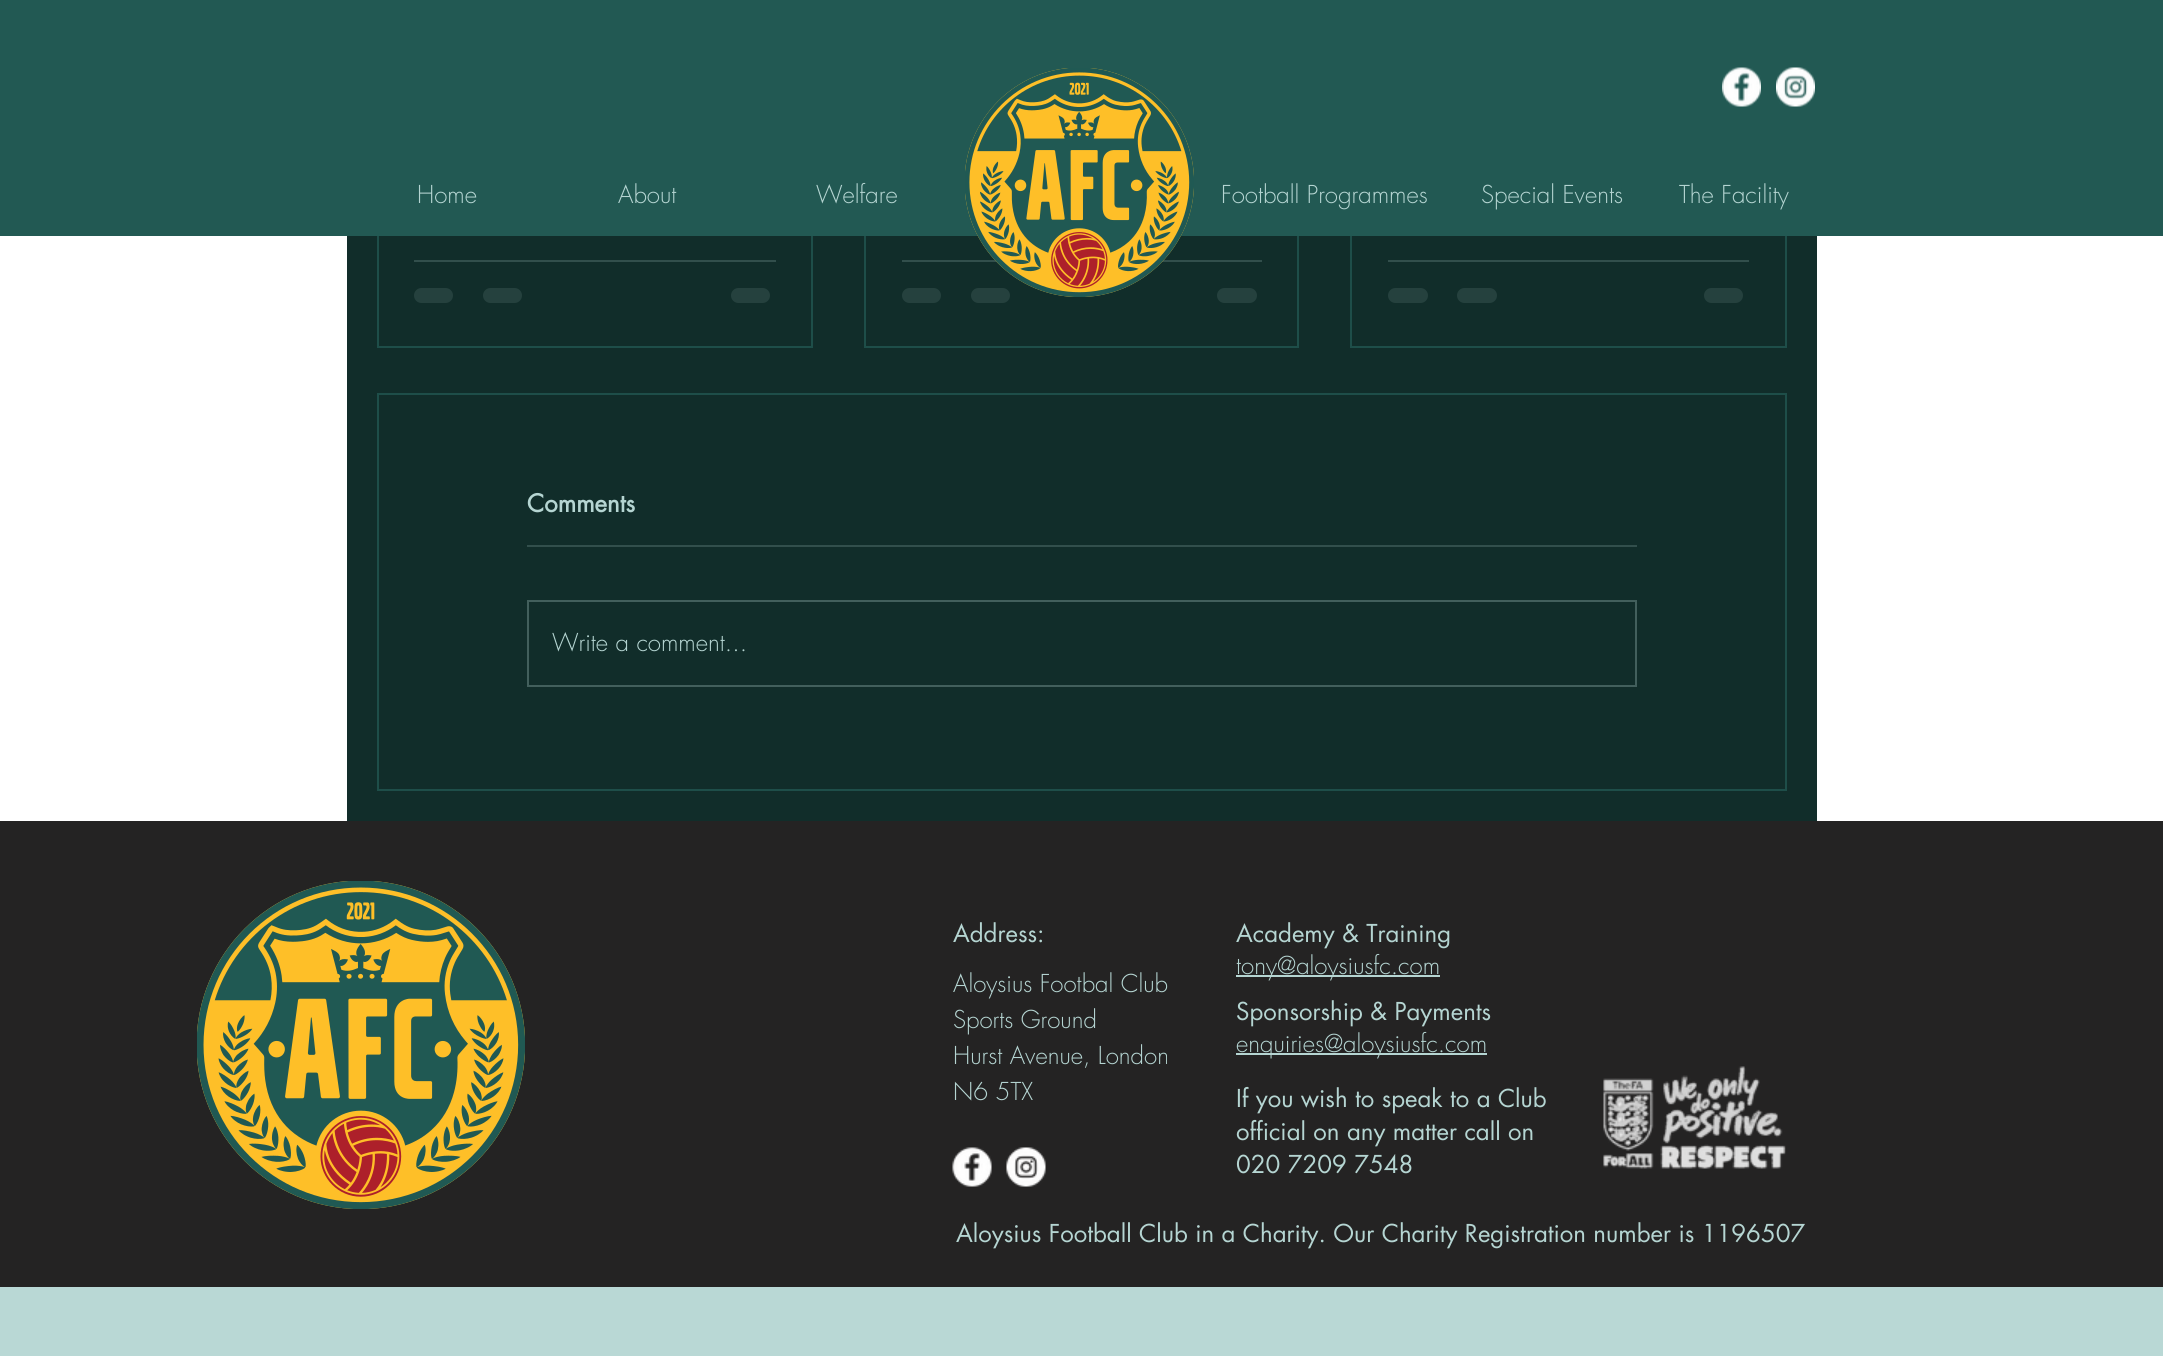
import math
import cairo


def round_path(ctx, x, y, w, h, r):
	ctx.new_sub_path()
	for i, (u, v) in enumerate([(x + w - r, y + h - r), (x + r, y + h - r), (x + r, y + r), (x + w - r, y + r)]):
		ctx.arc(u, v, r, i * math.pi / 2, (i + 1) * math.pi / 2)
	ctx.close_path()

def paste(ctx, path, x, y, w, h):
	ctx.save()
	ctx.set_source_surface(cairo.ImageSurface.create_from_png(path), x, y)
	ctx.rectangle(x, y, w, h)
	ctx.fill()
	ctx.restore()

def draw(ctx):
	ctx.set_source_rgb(1, 1, 1)
	ctx.paint()
	ctx.set_source_rgb(0.067, 0.176, 0.165)
	ctx.rectangle(347, 236, 1470, 585)
	ctx.fill()
	ctx.rectangle(378, -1, 434, 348)
	ctx.set_source_rgb(0.118, 0.306, 0.286)
	ctx.stroke()
	ctx.rectangle(865, -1, 433, 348)
	ctx.stroke()
	ctx.rectangle(1351, -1, 435, 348)
	ctx.stroke()
	ctx.set_source_rgb(0.133, 0.349, 0.325)
	ctx.rectangle(0, 0, 2163, 236)
	ctx.fill()
	ctx.select_font_face('futura Light')
	ctx.set_font_size(24)
	ctx.set_source_rgb(0.71, 0.835, 0.824)
	for x, y, s in [
		(417, 203, 'Home'),
		(618, 203, 'About'),
		(816, 203, 'Welfare'),
	]:
		ctx.move_to(x, y)
		ctx.show_text(s)
	ctx.set_source_rgb(0.196, 0.31, 0.298)
	ctx.rectangle(902, 260, 360, 2)
	ctx.fill()
	ctx.set_source_rgb(0.145, 0.255, 0.243)
	round_path(ctx, 971, 288, 39, 15, 7.5)
	ctx.fill()
	paste(ctx, 'media/1.png', 965, 68, 229, 229)
	paste(ctx, 'media/2.png', 1722, 67, 39, 40)
	paste(ctx, 'media/3.png', 1776, 67, 39, 40)
	ctx.set_source_rgb(0.71, 0.835, 0.824)
	for x, y, s in [
		(1221, 203, 'Football Programmes'),
		(1481, 203, 'Special Events'),
		(1679, 203, 'The Facility'),
	]:
		ctx.move_to(x, y)
		ctx.show_text(s)
	ctx.set_source_rgb(0.196, 0.31, 0.298)
	ctx.rectangle(414, 260, 362, 2)
	ctx.fill()
	ctx.set_source_rgb(0.145, 0.255, 0.243)
	round_path(ctx, 414, 288, 39, 15, 7.5)
	ctx.fill()
	round_path(ctx, 483, 288, 39, 15, 7.5)
	ctx.fill()
	round_path(ctx, 731, 288, 39, 15, 7.5)
	ctx.fill()
	round_path(ctx, 902, 288, 39, 15, 7.5)
	ctx.fill()
	round_path(ctx, 1217, 288, 40, 15, 7.5)
	ctx.fill()
	ctx.set_source_rgb(0.196, 0.31, 0.298)
	ctx.rectangle(1388, 260, 361, 2)
	ctx.fill()
	ctx.set_source_rgb(0.145, 0.255, 0.243)
	round_path(ctx, 1388, 288, 40, 15, 7.5)
	ctx.fill()
	round_path(ctx, 1457, 288, 40, 15, 7.5)
	ctx.fill()
	round_path(ctx, 1704, 288, 39, 15, 7.5)
	ctx.fill()
	ctx.rectangle(378, 394, 1408, 396)
	ctx.set_source_rgb(0.118, 0.306, 0.286)
	ctx.stroke()
	ctx.select_font_face('futura', cairo.FONT_SLANT_NORMAL, cairo.FONT_WEIGHT_BOLD)
	ctx.set_source_rgb(0.71, 0.835, 0.824)
	ctx.move_to(527, 512)
	ctx.show_text('Comments')
	ctx.set_source_rgb(0.196, 0.31, 0.298)
	ctx.rectangle(527, 545, 1110, 2)
	ctx.fill()
	ctx.rectangle(528, 601, 1108, 85)
	ctx.set_source_rgb(0.259, 0.373, 0.361)
	ctx.stroke()
	ctx.select_font_face('futura Light')
	ctx.set_source_rgb(0.71, 0.835, 0.824)
	ctx.move_to(552, 651)
	ctx.show_text('Write a comment...')
	ctx.set_source_rgb(0.141, 0.137, 0.137)
	ctx.rectangle(0, 821, 2163, 466)
	ctx.fill()
	paste(ctx, 'media/4.png', 197, 881, 328, 328)
	ctx.select_font_face('futura')
	ctx.set_source_rgb(0.71, 0.835, 0.824)
	ctx.move_to(953, 942)
	ctx.show_text('Address:')
	ctx.move_to(1236, 942)
	ctx.show_text('Academy & Training')
	ctx.rectangle(1236, 975, 204, 2)
	ctx.fill()
	ctx.select_font_face('futura Light')
	for x, y, s in [
		(1236, 974, 'tony@aloysiusfc.com'),
		(953, 992, 'Aloysius Footbal Club'),
		(953, 1028, 'Sports Ground'),
		(953, 1064, 'Hurst Avenue, London'),
		(953, 1100, 'N6 5TX'),
	]:
		ctx.move_to(x, y)
		ctx.show_text(s)
	ctx.select_font_face('futura')
	ctx.move_to(1236, 1020)
	ctx.show_text('Sponsorship & Payments')
	ctx.rectangle(1236, 1053, 251, 2)
	ctx.fill()
	ctx.select_font_face('futura Light')
	ctx.move_to(1236, 1052)
	ctx.show_text('enquiries@aloysiusfc.com')
	paste(ctx, 'media/5.png', 952, 1147, 40, 40)
	paste(ctx, 'media/6.png', 1006, 1147, 40, 40)
	ctx.select_font_face('futura')
	for x, y, s in [
		(1236, 1107, 'If you wish to speak to a Club'),
		(1236, 1140, 'official on any matter call on'),
		(1236, 1173, '020 7209 7548'),
	]:
		ctx.move_to(x, y)
		ctx.show_text(s)
	paste(ctx, 'media/7.png', 1603, 1066, 183, 103)
	ctx.move_to(956, 1242)
	ctx.show_text('Aloysius Football Club in a Charity. Our Charity Registration number is 1196507')
	ctx.set_source_rgb(0.725, 0.847, 0.835)
	ctx.rectangle(0, 1287, 2163, 69)
	ctx.fill()


surface = cairo.ImageSurface(cairo.FORMAT_RGB24, 2163, 1356)
ctx = cairo.Context(surface)
options = cairo.FontOptions()
options.set_hint_metrics(cairo.HINT_METRICS_OFF)
options.set_hint_style(cairo.HINT_STYLE_NONE)
ctx.set_font_options(options)
ctx.set_miter_limit(4)
draw(ctx)
surface.write_to_png('image.png')
